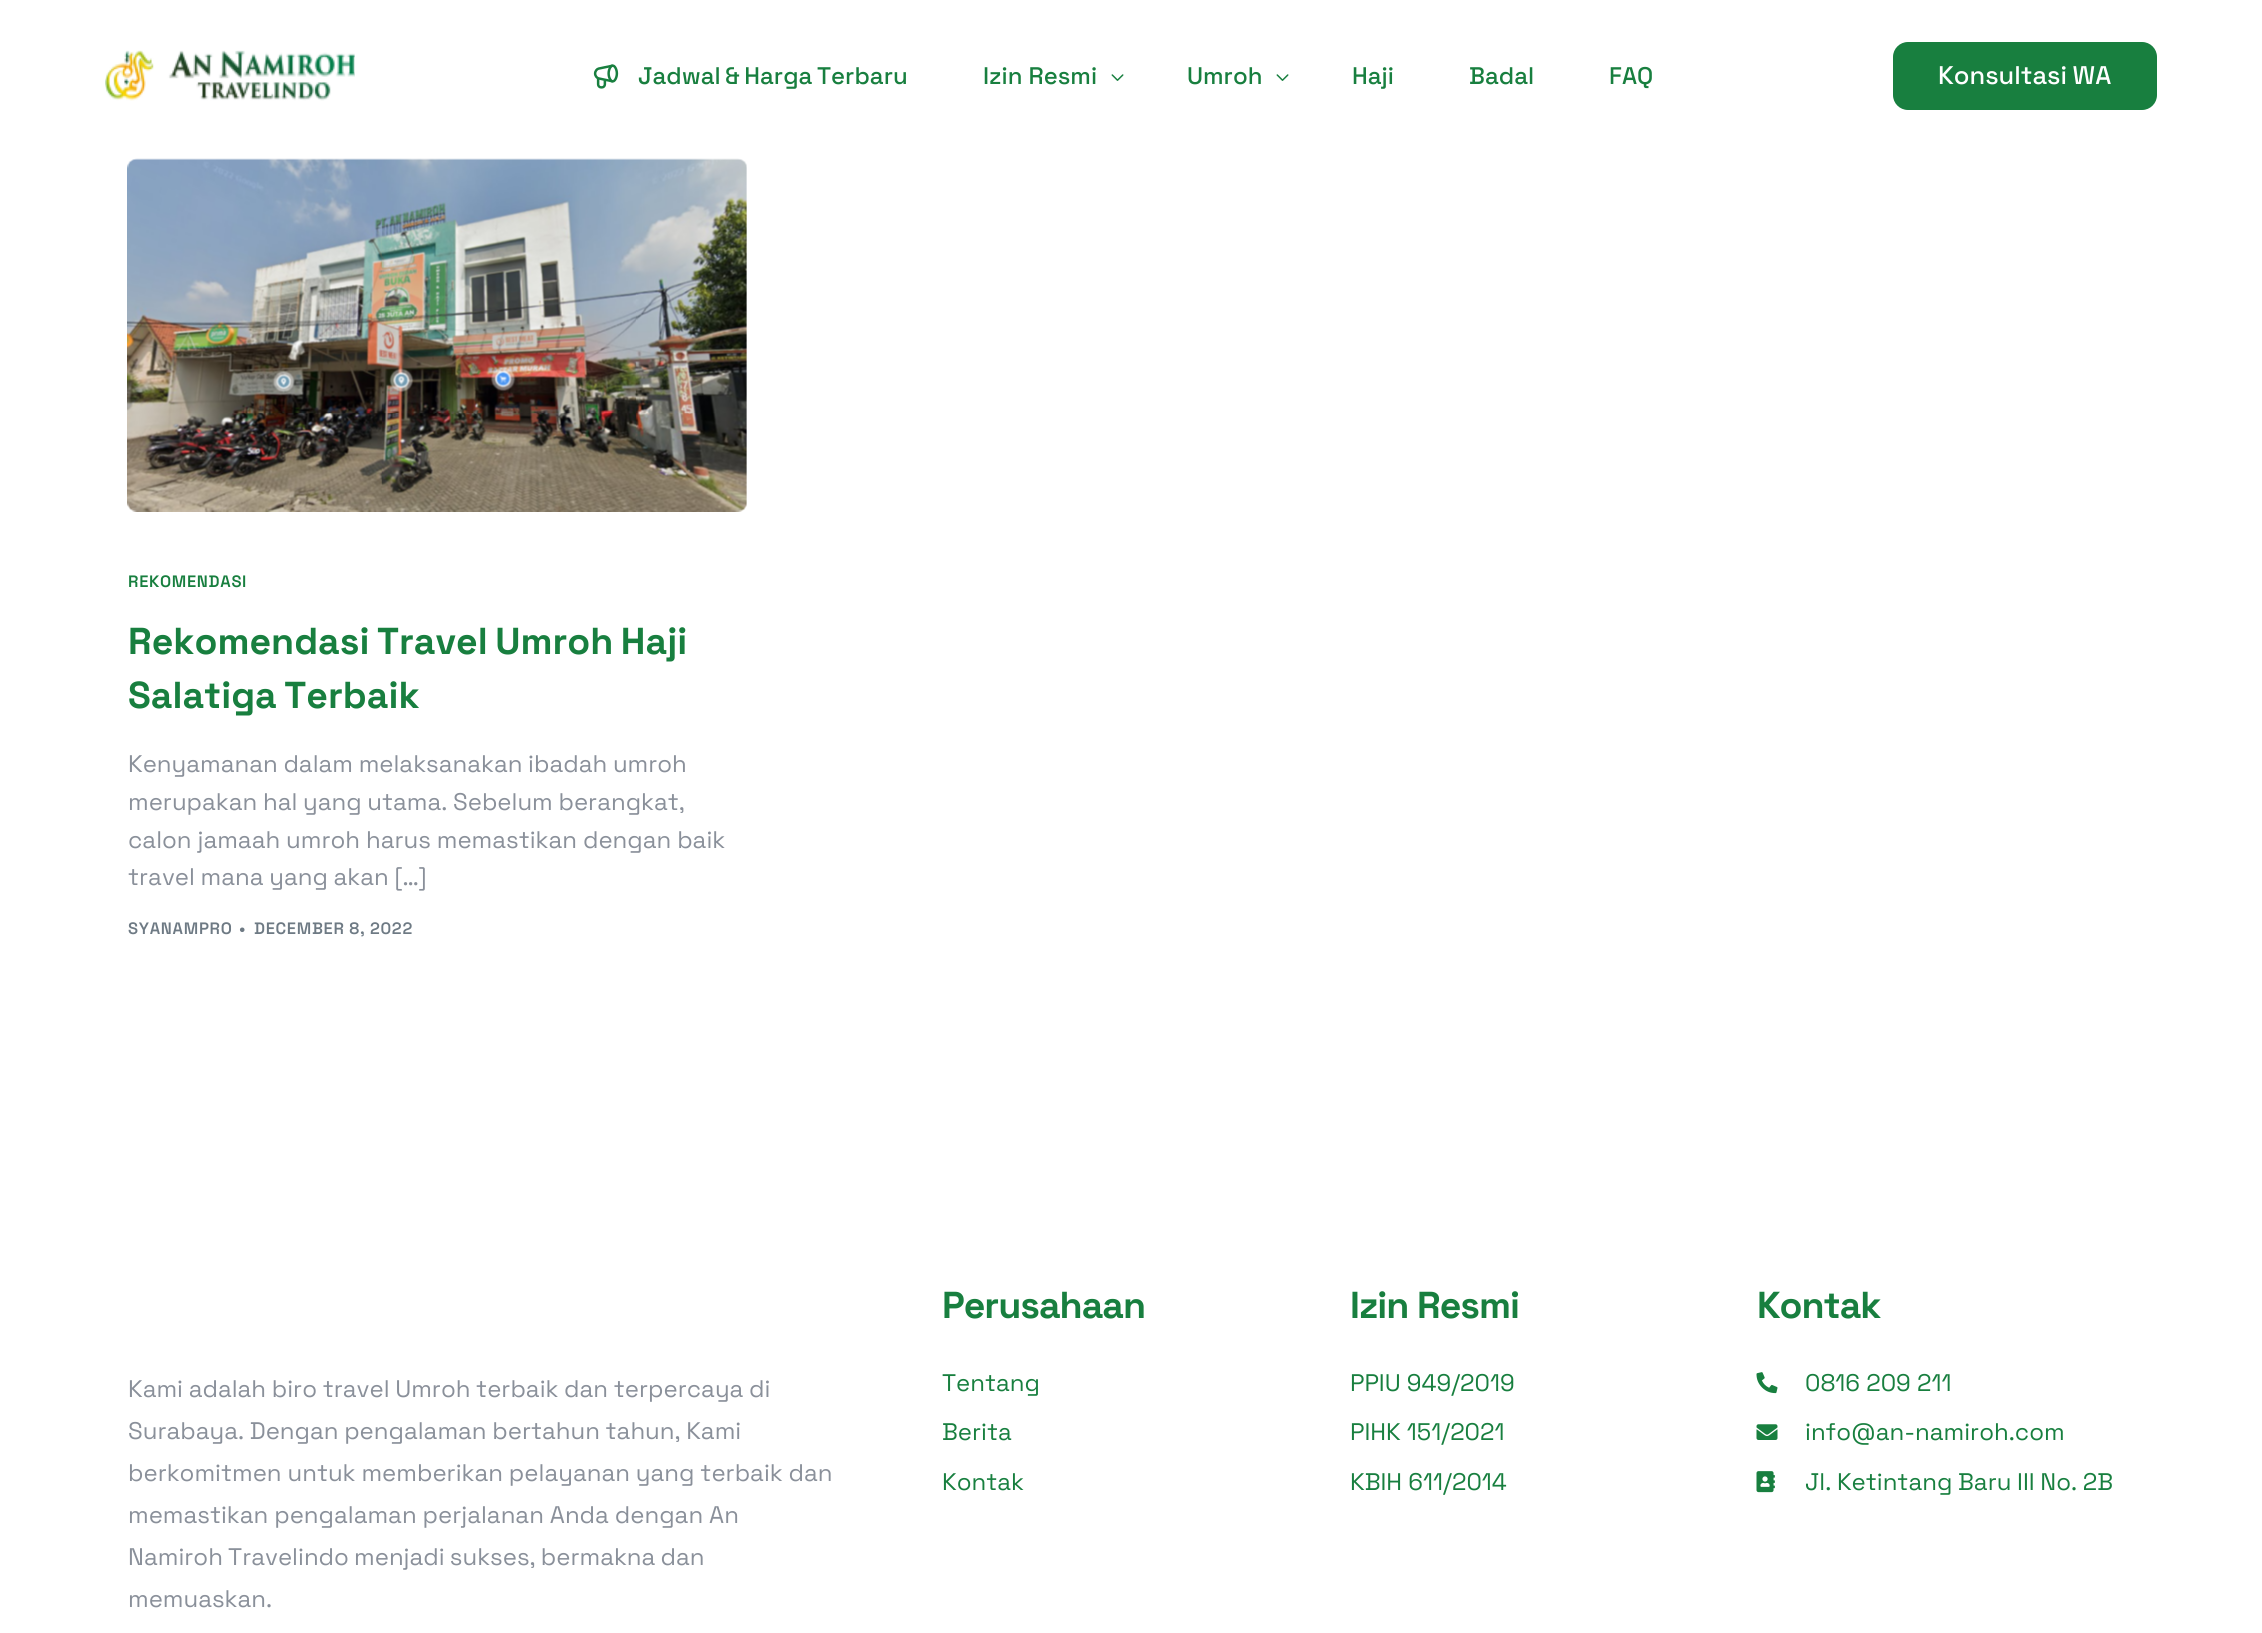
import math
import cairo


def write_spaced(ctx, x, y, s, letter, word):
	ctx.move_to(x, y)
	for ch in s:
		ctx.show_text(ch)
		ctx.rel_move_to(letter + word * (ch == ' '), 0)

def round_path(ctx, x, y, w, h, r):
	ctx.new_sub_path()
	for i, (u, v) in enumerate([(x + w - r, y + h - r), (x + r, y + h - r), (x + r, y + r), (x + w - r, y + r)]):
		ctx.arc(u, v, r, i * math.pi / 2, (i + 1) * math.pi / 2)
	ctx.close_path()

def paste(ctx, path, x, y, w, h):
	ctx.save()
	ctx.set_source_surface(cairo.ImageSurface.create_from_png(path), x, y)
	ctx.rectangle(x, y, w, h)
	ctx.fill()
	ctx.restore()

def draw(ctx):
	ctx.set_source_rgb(1, 1, 1)
	ctx.paint()
	paste(ctx, 'media/1.png', 105, 50, 250, 51)
	paste(ctx, 'media/2.png', 593, 64, 26, 25)
	ctx.select_font_face('Space Grotesk Medium')
	ctx.set_font_size(24)
	ctx.set_source_rgb(0.094, 0.498, 0.247)
	write_spaced(ctx, 638, 84, 'Jadwal & Harga Terbaru', 0, -1.5)
	ctx.move_to(983, 84)
	ctx.show_text('Izin Resmi')
	paste(ctx, 'media/3.png', 1111, 74, 13, 7)
	ctx.move_to(1187, 84)
	ctx.show_text('Umroh')
	paste(ctx, 'media/3.png', 1276, 74, 13, 7)
	for x, y, s in [
		(1352, 84, 'Haji'),
		(1469, 84, 'Badal'),
		(1609, 84, 'FAQ'),
	]:
		ctx.move_to(x, y)
		ctx.show_text(s)
	round_path(ctx, 1893, 42, 264, 68, 15)
	ctx.fill()
	ctx.set_font_size(25.5)
	ctx.set_source_rgb(1, 1, 1)
	write_spaced(ctx, 1938, 84, 'Konsultasi WA', 0, -1)
	paste(ctx, 'media/4.png', 127, 158, 620, 354)
	ctx.select_font_face('Space Grotesk SemiBold')
	ctx.set_font_size(16.5)
	ctx.set_source_rgb(0.094, 0.498, 0.247)
	write_spaced(ctx, 128, 587, 'REKOMENDASI', 0.7, 0)
	ctx.select_font_face('Space Grotesk', cairo.FONT_SLANT_NORMAL, cairo.FONT_WEIGHT_BOLD)
	ctx.set_font_size(37.5)
	write_spaced(ctx, 128, 654, 'Rekomendasi Travel Umroh Haji', 0, -2)
	write_spaced(ctx, 128, 708, 'Salatiga Terbaik', 0, -2)
	ctx.select_font_face('Space Grotesk')
	ctx.set_font_size(24)
	ctx.set_source_rgb(0.541, 0.565, 0.604)
	write_spaced(ctx, 128, 772, 'Kenyamanan dalam melaksanakan ibadah umroh', 0, -0.5)
	write_spaced(ctx, 128, 810, 'merupakan hal yang utama. Sebelum berangkat,', 0, -0.5)
	write_spaced(ctx, 128, 848, 'calon jamaah umroh harus memastikan dengan baik', 0, -0.25)
	write_spaced(ctx, 128, 885, 'travel mana yang akan […]', 0, -0.5)
	ctx.select_font_face('Space Grotesk SemiBold')
	ctx.set_font_size(16.5)
	ctx.set_source_rgb(0.431, 0.478, 0.518)
	write_spaced(ctx, 128, 934, 'SYANAMPRO', 0.7, 0)
	write_spaced(ctx, 239, 934, '•', 0.7, 0)
	write_spaced(ctx, 254, 934, 'DECEMBER 8, 2022', 0.7, -0.25)
	ctx.select_font_face('Space Grotesk')
	ctx.set_font_size(24)
	ctx.set_source_rgb(0.541, 0.565, 0.604)
	write_spaced(ctx, 128, 1397, 'Kami adalah biro travel Umroh terbaik dan terpercaya di', 0, -0.5)
	write_spaced(ctx, 128, 1439, 'Surabaya. Dengan pengalaman bertahun tahun, Kami', 0, -0.5)
	write_spaced(ctx, 128, 1481, 'berkomitmen untuk memberikan pelayanan yang terbaik dan', 0, -0.25)
	write_spaced(ctx, 128, 1523, 'memastikan pengalaman perjalanan Anda dengan An', 0, -0.25)
	write_spaced(ctx, 128, 1565, 'Namiroh Travelindo menjadi sukses, bermakna dan', 0, -1)
	ctx.move_to(128, 1607)
	ctx.show_text('memuaskan.')
	ctx.select_font_face('Space Grotesk', cairo.FONT_SLANT_NORMAL, cairo.FONT_WEIGHT_BOLD)
	ctx.set_font_size(37.5)
	ctx.set_source_rgb(0.094, 0.498, 0.247)
	write_spaced(ctx, 942, 1318, 'Perusahaan', -1, 0)
	ctx.select_font_face('Space Grotesk')
	ctx.set_font_size(24)
	for x, y, s in [
		(942, 1391, 'Tentang'),
		(942, 1440, 'Berita'),
		(942, 1490, 'Kontak'),
	]:
		ctx.move_to(x, y)
		ctx.show_text(s)
	ctx.select_font_face('Space Grotesk', cairo.FONT_SLANT_NORMAL, cairo.FONT_WEIGHT_BOLD)
	ctx.set_font_size(37.5)
	write_spaced(ctx, 1350, 1318, 'Izin Resmi', -1, 0)
	ctx.select_font_face('Space Grotesk')
	ctx.set_font_size(24)
	for x, y, s in [
		(1350, 1391, 'PPIU 949/2019'),
		(1350, 1440, 'PIHK 151/2021'),
		(1350, 1490, 'KBIH 611/2014'),
	]:
		ctx.move_to(x, y)
		ctx.show_text(s)
	ctx.select_font_face('Space Grotesk', cairo.FONT_SLANT_NORMAL, cairo.FONT_WEIGHT_BOLD)
	ctx.set_font_size(37.5)
	write_spaced(ctx, 1757, 1318, 'Kontak', -1, 0)
	paste(ctx, 'media/5.png', 1756, 1372, 22, 22)
	ctx.select_font_face('Space Grotesk')
	ctx.set_font_size(24)
	ctx.move_to(1805, 1391)
	ctx.show_text('0816 209 211')
	paste(ctx, 'media/6.png', 1756, 1424, 22, 16)
	ctx.move_to(1805, 1440)
	ctx.show_text('info@an-namiroh.com')
	paste(ctx, 'media/7.png', 1756, 1471, 19, 22)
	write_spaced(ctx, 1805, 1490, 'Jl. Ketintang Baru III No. 2B', 0, -0.5)


surface = cairo.ImageSurface(cairo.FORMAT_RGB24, 2262, 1633)
ctx = cairo.Context(surface)
options = cairo.FontOptions()
options.set_hint_metrics(cairo.HINT_METRICS_OFF)
options.set_hint_style(cairo.HINT_STYLE_NONE)
ctx.set_font_options(options)
ctx.set_miter_limit(4)
draw(ctx)
surface.write_to_png('image.png')
